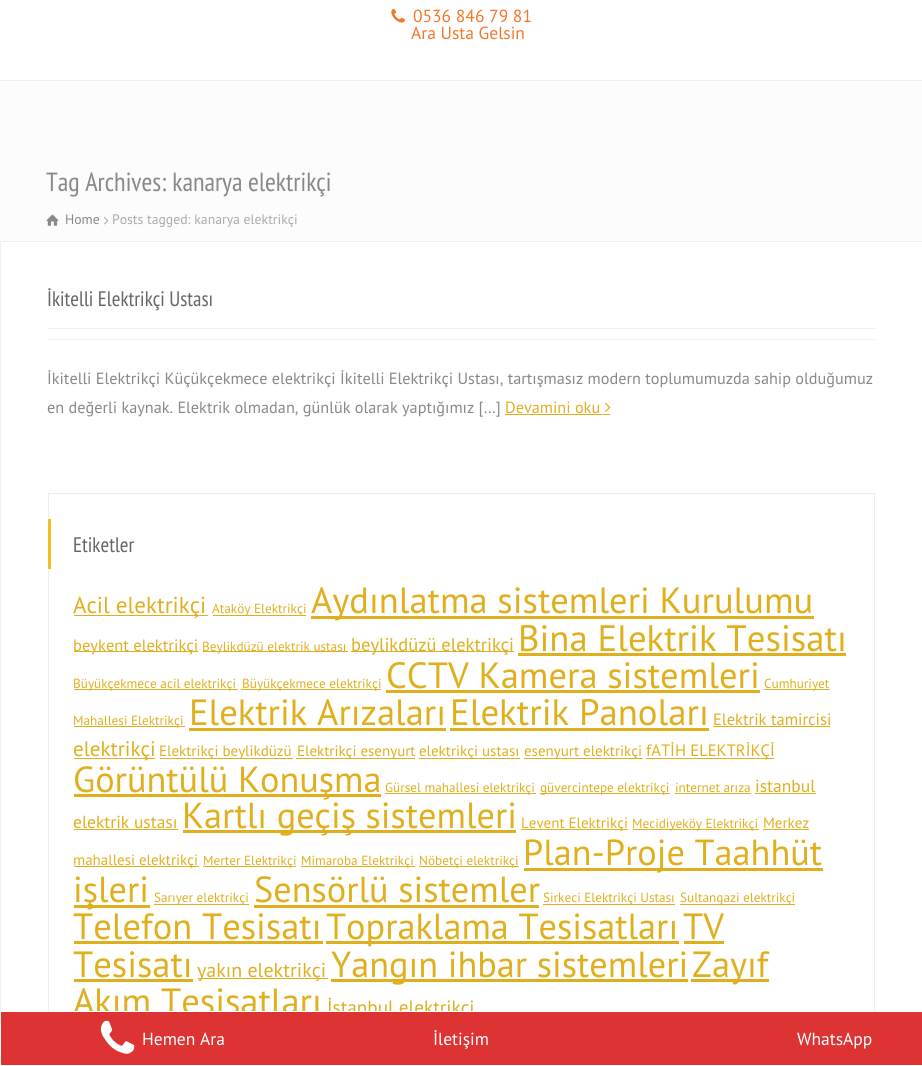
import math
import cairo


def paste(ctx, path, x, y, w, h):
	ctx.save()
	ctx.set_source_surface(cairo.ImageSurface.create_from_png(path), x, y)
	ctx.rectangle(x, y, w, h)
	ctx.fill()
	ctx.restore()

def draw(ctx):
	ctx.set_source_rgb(1, 1, 1)
	ctx.paint()
	paste(ctx, 'media/1.png', 391, 8, 14, 15)
	ctx.select_font_face('PT Sans')
	ctx.set_font_size(17.5)
	ctx.set_source_rgb(0.957, 0.463, 0.161)
	ctx.move_to(413, 22)
	ctx.show_text('0536 846 79 81')
	ctx.move_to(411, 39)
	ctx.show_text('Ara Usta Gelsin')
	ctx.set_source_rgb(0.988, 0.988, 0.988)
	ctx.rectangle(0, 81, 922, 160)
	ctx.fill()
	ctx.set_source_rgb(0.933, 0.933, 0.933)
	ctx.rectangle(0, 80, 922, 1)
	ctx.fill()
	ctx.select_font_face('PT Sans Narrow')
	ctx.set_font_size(26.25)
	ctx.set_source_rgb(0.533, 0.533, 0.533)
	ctx.move_to(46, 191)
	ctx.show_text('Tag Archives: kanarya elektrikçi')
	paste(ctx, 'media/2.png', 46, 214, 13, 12)
	ctx.select_font_face('PT Sans')
	ctx.set_font_size(13.75)
	ctx.move_to(65, 224)
	ctx.show_text('Home')
	paste(ctx, 'media/3.png', 104, 217, 5, 8)
	ctx.set_source_rgb(0.667, 0.667, 0.667)
	ctx.move_to(112, 224)
	ctx.show_text('Posts tagged: kanarya elektrikçi')
	ctx.rectangle(0.5, 241.5, 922, 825)
	ctx.set_source_rgb(0.941, 0.941, 0.941)
	ctx.set_line_width(1)
	ctx.stroke()
	ctx.set_source_rgb(0.933, 0.933, 0.933)
	ctx.rectangle(48, 339, 827, 1)
	ctx.fill()
	ctx.select_font_face('PT Sans Narrow')
	ctx.set_font_size(21)
	ctx.set_source_rgb(0.4, 0.4, 0.4)
	ctx.move_to(47, 306)
	ctx.show_text('İkitelli Elektrikçi Ustası')
	ctx.set_source_rgb(0.933, 0.933, 0.933)
	ctx.rectangle(48, 328, 827, 1)
	ctx.fill()
	ctx.select_font_face('PT Sans')
	ctx.set_font_size(16.25)
	ctx.set_source_rgb(0.533, 0.533, 0.533)
	ctx.move_to(47, 384)
	ctx.show_text('İkitelli Elektrikçi Küçükçekmece elektrikçi İkitelli Elektrikçi Ustası, tartışmasız modern toplumumuzda sahip olduğumuz')
	ctx.move_to(47, 413)
	ctx.show_text('en değerli kaynak. Elektrik olmadan, günlük olarak yaptığımız […]')
	ctx.set_source_rgb(0.878, 0.686, 0.114)
	ctx.move_to(505, 413)
	ctx.show_text('Devamini oku')
	ctx.rectangle(505, 414, 105, 1)
	ctx.fill()
	paste(ctx, 'media/4.png', 605, 402, 6, 10)
	ctx.rectangle(48.5, 493.5, 826, 569)
	ctx.set_source_rgb(0.929, 0.929, 0.929)
	ctx.stroke()
	ctx.set_source_rgb(0.957, 0.749, 0.118)
	ctx.rectangle(48, 519, 3, 50)
	ctx.fill()
	ctx.select_font_face('PT Sans Narrow')
	ctx.set_font_size(21)
	ctx.set_source_rgb(0.4, 0.4, 0.4)
	ctx.move_to(73, 552)
	ctx.show_text('Etiketler')
	ctx.set_source_rgb(0.878, 0.686, 0.114)
	ctx.rectangle(74, 615, 134, 1)
	ctx.fill()
	ctx.select_font_face('PT Sans')
	ctx.set_font_size(23)
	ctx.move_to(73, 613)
	ctx.show_text('Acil elektrikçi')
	ctx.rectangle(213, 615, 93, 1)
	ctx.fill()
	ctx.set_font_size(13.25)
	ctx.move_to(212, 613)
	ctx.show_text('Ataköy Elektrikçi')
	ctx.rectangle(311, 616, 503, 3)
	ctx.fill()
	ctx.set_font_size(36.5)
	ctx.move_to(311, 613)
	ctx.show_text('Aydınlatma sistemleri Kurulumu')
	ctx.rectangle(74, 651, 124, 1)
	ctx.fill()
	ctx.set_font_size(16.5)
	ctx.move_to(73, 651)
	ctx.show_text('beykent elektrikçi')
	ctx.rectangle(203, 651, 145, 1)
	ctx.fill()
	ctx.set_font_size(13.25)
	ctx.move_to(202, 651)
	ctx.show_text('Beylikdüzü elektrik ustası')
	ctx.rectangle(351, 651, 163, 1)
	ctx.fill()
	ctx.set_font_size(18.5)
	ctx.move_to(351, 651)
	ctx.show_text('beylikdüzü elektrikçi')
	ctx.set_font_size(36.75)
	ctx.move_to(518, 651)
	ctx.show_text('Bina Elektrik Tesisatı')
	ctx.rectangle(518, 653, 328, 3)
	ctx.fill()
	ctx.rectangle(74, 689, 164, 1)
	ctx.fill()
	ctx.set_font_size(13.25)
	ctx.move_to(73, 688)
	ctx.show_text('Büyükçekmece acil elektrikçi')
	ctx.rectangle(241, 689, 140, 1)
	ctx.fill()
	ctx.move_to(242, 688)
	ctx.show_text('Büyükçekmece elektrikçi')
	ctx.set_font_size(36.5)
	ctx.move_to(386, 688)
	ctx.show_text('CCTV Kamera sistemleri')
	ctx.rectangle(386, 690, 374, 3)
	ctx.fill()
	ctx.rectangle(764, 689, 66, 1)
	ctx.fill()
	ctx.set_font_size(13.25)
	ctx.move_to(764, 688)
	ctx.show_text('Cumhuriyet')
	ctx.rectangle(74, 726, 111, 1)
	ctx.fill()
	ctx.move_to(73, 725)
	ctx.show_text('Mahallesi Elektrikçi')
	ctx.set_font_size(36.5)
	ctx.move_to(189, 725)
	ctx.show_text('Elektrik Arızaları')
	ctx.rectangle(189, 728, 257, 3)
	ctx.fill()
	ctx.set_font_size(36.75)
	ctx.move_to(450, 725)
	ctx.show_text('Elektrik Panoları')
	ctx.rectangle(450, 728, 259, 3)
	ctx.fill()
	ctx.set_font_size(16.5)
	ctx.move_to(713, 725)
	ctx.show_text('Elektrik tamircisi')
	ctx.rectangle(713, 726, 117, 1)
	ctx.fill()
	ctx.rectangle(74, 758, 81, 1)
	ctx.fill()
	ctx.set_font_size(21)
	ctx.move_to(73, 756)
	ctx.show_text('elektrikçi')
	ctx.rectangle(160, 758, 133, 1)
	ctx.fill()
	ctx.set_font_size(15)
	ctx.move_to(159, 756)
	ctx.show_text('Elektrikçi beylikdüzü')
	ctx.rectangle(296, 758, 119, 1)
	ctx.fill()
	ctx.move_to(297, 756)
	ctx.show_text('Elektrikçi esenyurt')
	ctx.rectangle(419, 758, 101, 1)
	ctx.fill()
	ctx.move_to(419, 756)
	ctx.show_text('elektrikçi ustası')
	ctx.rectangle(524, 758, 119, 1)
	ctx.fill()
	ctx.move_to(524, 756)
	ctx.show_text('esenyurt elektrikçi')
	ctx.rectangle(646, 758, 128, 1)
	ctx.fill()
	ctx.set_font_size(16.5)
	ctx.move_to(646, 756)
	ctx.show_text('fATİH ELEKTRİKÇİ')
	ctx.rectangle(74, 794, 307, 3)
	ctx.fill()
	ctx.set_font_size(36.25)
	ctx.move_to(73, 792)
	ctx.show_text('Görüntülü Konuşma')
	ctx.rectangle(385, 793, 151, 1)
	ctx.fill()
	ctx.set_font_size(13.25)
	ctx.move_to(385, 792)
	ctx.show_text('Gürsel mahallesi elektrikçi')
	ctx.rectangle(540, 793, 130, 1)
	ctx.fill()
	ctx.move_to(540, 792)
	ctx.show_text('güvercintepe elektrikçi')
	ctx.move_to(675, 792)
	ctx.show_text('internet arıza')
	ctx.rectangle(675, 793, 76, 1)
	ctx.fill()
	ctx.set_font_size(17.5)
	ctx.move_to(755, 792)
	ctx.show_text('istanbul')
	ctx.rectangle(755, 793, 61, 1)
	ctx.fill()
	ctx.move_to(73, 828)
	ctx.show_text('elektrik ustası')
	ctx.rectangle(74, 829, 104, 1)
	ctx.fill()
	ctx.rectangle(183, 830, 333, 3)
	ctx.fill()
	ctx.set_font_size(36.25)
	ctx.move_to(182, 828)
	ctx.show_text('Kartlı geçiş sistemleri')
	ctx.rectangle(521, 829, 107, 1)
	ctx.fill()
	ctx.set_font_size(15)
	ctx.move_to(521, 828)
	ctx.show_text('Levent Elektrikçi')
	ctx.rectangle(633, 829, 126, 1)
	ctx.fill()
	ctx.set_font_size(13.25)
	ctx.move_to(632, 828)
	ctx.show_text('Mecidiyeköy Elektrikçi')
	ctx.set_font_size(15)
	ctx.move_to(763, 828)
	ctx.show_text('Merkez')
	ctx.rectangle(763, 829, 46, 1)
	ctx.fill()
	ctx.rectangle(74, 866, 125, 1)
	ctx.fill()
	ctx.move_to(73, 865)
	ctx.show_text('mahallesi elektrikçi')
	ctx.rectangle(203, 866, 93, 1)
	ctx.fill()
	ctx.set_font_size(13.25)
	ctx.move_to(203, 865)
	ctx.show_text('Merter Elektrikçi')
	ctx.rectangle(301, 866, 114, 1)
	ctx.fill()
	ctx.move_to(301, 865)
	ctx.show_text('Mimaroba Elektrikçi')
	ctx.rectangle(419, 866, 100, 1)
	ctx.fill()
	ctx.move_to(419, 865)
	ctx.show_text('Nöbetçi elektrikçi')
	ctx.rectangle(524, 868, 299, 3)
	ctx.fill()
	ctx.set_font_size(36.25)
	ctx.move_to(523, 865)
	ctx.show_text('Plan-Proje Taahhüt')
	ctx.rectangle(74, 905, 76, 3)
	ctx.fill()
	ctx.move_to(73, 902)
	ctx.show_text('işleri')
	ctx.rectangle(154, 904, 95, 1)
	ctx.fill()
	ctx.set_font_size(13.25)
	ctx.move_to(154, 902)
	ctx.show_text('Sarıyer elektrikçi')
	ctx.set_font_size(36.25)
	ctx.move_to(254, 902)
	ctx.show_text('Sensörlü sistemler')
	ctx.rectangle(254, 905, 285, 3)
	ctx.fill()
	ctx.rectangle(543, 904, 132, 1)
	ctx.fill()
	ctx.set_font_size(13.25)
	ctx.move_to(543, 902)
	ctx.show_text('Sirkeci Elektrikçi Ustası')
	ctx.rectangle(680, 904, 115, 1)
	ctx.fill()
	ctx.move_to(680, 902)
	ctx.show_text('Sultangazi elektrikçi')
	ctx.set_font_size(36.5)
	ctx.move_to(73, 939)
	ctx.show_text('Telefon Tesisatı')
	ctx.rectangle(74, 941, 249, 3)
	ctx.fill()
	ctx.rectangle(326, 941, 353, 3)
	ctx.fill()
	ctx.set_font_size(36.25)
	ctx.move_to(326, 939)
	ctx.show_text('Topraklama Tesisatları')
	ctx.set_font_size(36.5)
	ctx.move_to(683, 939)
	ctx.show_text('TV')
	ctx.rectangle(684, 941, 40, 3)
	ctx.fill()
	ctx.move_to(73, 977)
	ctx.show_text('Tesisatı')
	ctx.rectangle(74, 979, 119, 3)
	ctx.fill()
	ctx.rectangle(198, 978, 130, 1)
	ctx.fill()
	ctx.set_font_size(20)
	ctx.move_to(197, 977)
	ctx.show_text('yakın elektrikçi')
	ctx.rectangle(331, 979, 357, 3)
	ctx.fill()
	ctx.set_font_size(36.25)
	ctx.move_to(331, 977)
	ctx.show_text('Yangın ihbar sistemleri')
	ctx.rectangle(691, 979, 78, 3)
	ctx.fill()
	ctx.set_font_size(36.5)
	ctx.move_to(692, 977)
	ctx.show_text('Zayıf')
	ctx.move_to(73, 1014)
	ctx.show_text('Akım Tesisatları')
	ctx.set_font_size(19.25)
	ctx.move_to(327, 1014)
	ctx.show_text('İstanbul elektrikçi')
	ctx.set_source_rgb(0.867, 0.2, 0.2)
	ctx.rectangle(0.5, 1011.5, 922, 54)
	ctx.fill_preserve()
	ctx.set_source_rgb(1, 1, 1)
	ctx.stroke()
	paste(ctx, 'media/5.png', 100, 1020, 35, 34)
	ctx.set_font_size(17.5)
	for x, y, s in [
		(142, 1045, 'Hemen Ara'),
		(433, 1045, 'İletişim'),
		(797, 1045, 'WhatsApp'),
	]:
		ctx.move_to(x, y)
		ctx.show_text(s)


surface = cairo.ImageSurface(cairo.FORMAT_RGB24, 922, 1066)
ctx = cairo.Context(surface)
options = cairo.FontOptions()
options.set_hint_metrics(cairo.HINT_METRICS_OFF)
options.set_hint_style(cairo.HINT_STYLE_NONE)
ctx.set_font_options(options)
ctx.set_miter_limit(4)
draw(ctx)
surface.write_to_png('image.png')
